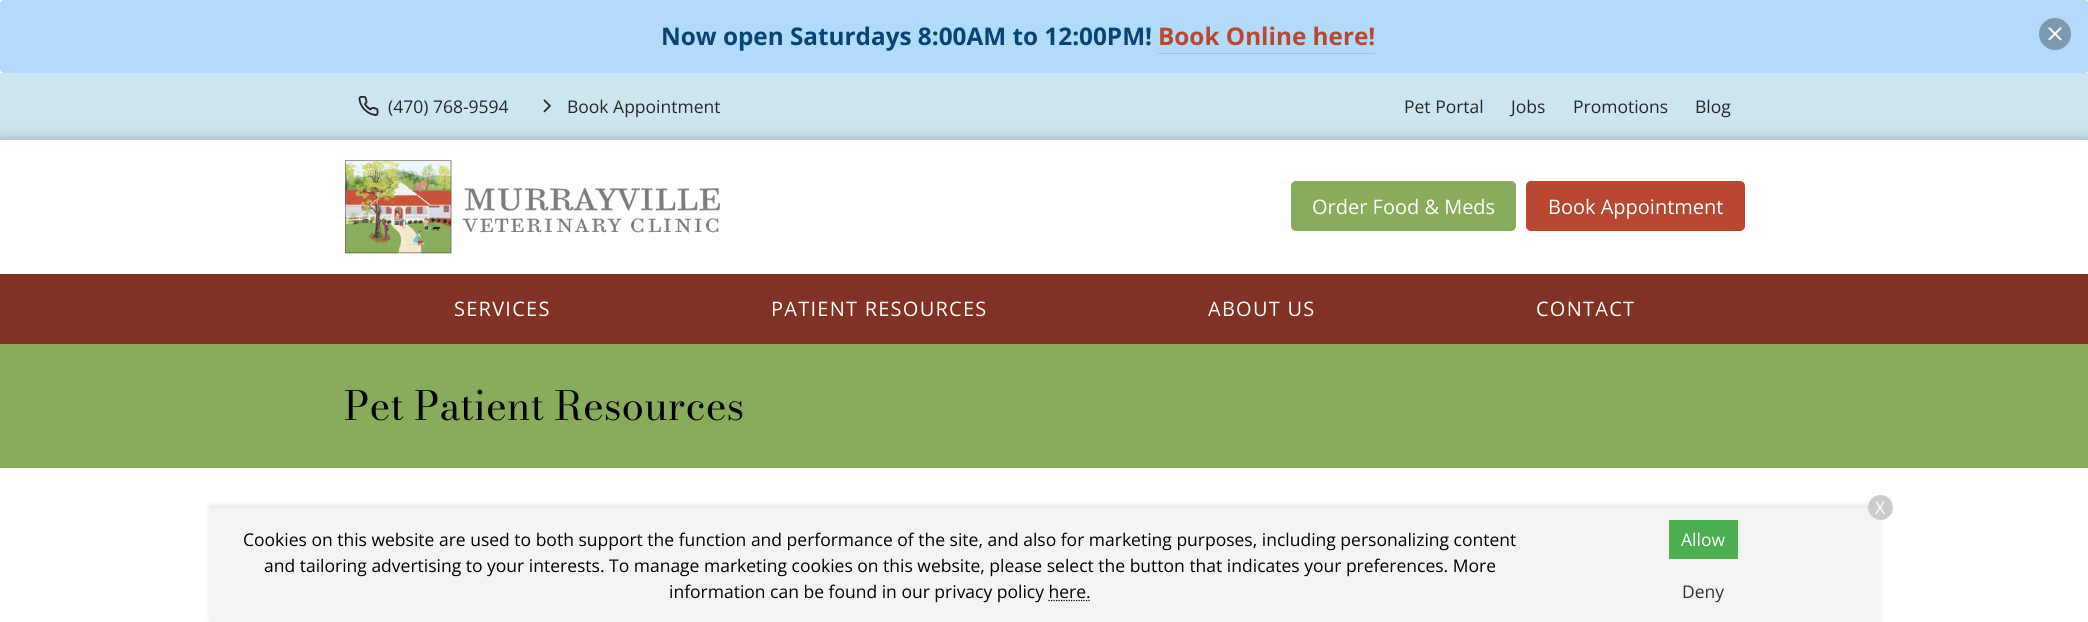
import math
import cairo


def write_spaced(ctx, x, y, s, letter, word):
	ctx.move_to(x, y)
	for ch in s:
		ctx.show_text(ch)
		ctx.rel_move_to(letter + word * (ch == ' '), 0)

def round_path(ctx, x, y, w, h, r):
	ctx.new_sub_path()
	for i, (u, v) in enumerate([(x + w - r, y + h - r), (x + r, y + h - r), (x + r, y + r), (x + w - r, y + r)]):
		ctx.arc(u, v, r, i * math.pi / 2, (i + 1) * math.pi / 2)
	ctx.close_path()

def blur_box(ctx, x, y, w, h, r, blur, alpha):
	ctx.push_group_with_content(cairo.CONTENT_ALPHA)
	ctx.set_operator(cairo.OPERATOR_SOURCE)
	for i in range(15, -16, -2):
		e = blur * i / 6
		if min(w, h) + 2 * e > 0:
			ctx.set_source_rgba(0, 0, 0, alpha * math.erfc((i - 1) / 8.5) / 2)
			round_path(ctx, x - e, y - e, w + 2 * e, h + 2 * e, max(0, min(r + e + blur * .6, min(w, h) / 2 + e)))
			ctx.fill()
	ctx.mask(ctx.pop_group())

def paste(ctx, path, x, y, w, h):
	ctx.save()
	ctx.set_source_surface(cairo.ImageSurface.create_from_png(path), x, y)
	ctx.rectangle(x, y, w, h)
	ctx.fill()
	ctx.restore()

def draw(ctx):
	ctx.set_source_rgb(1, 1, 1)
	ctx.paint()
	ctx.set_source_rgb(0.698, 0.859, 0.984)
	round_path(ctx, 0, 0, 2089, 73, 4)
	ctx.fill()
	ctx.select_font_face('Open Sans', cairo.FONT_SLANT_NORMAL, cairo.FONT_WEIGHT_BOLD)
	ctx.set_font_size(24.3)
	ctx.set_source_rgb(0.024, 0.267, 0.459)
	ctx.move_to(661, 45)
	ctx.show_text('Now open Saturdays 8:00AM to 12:00PM!')
	ctx.set_source_rgb(0.725, 0.282, 0.192)
	ctx.move_to(1158, 45)
	ctx.show_text('Book Online here!')
	ctx.set_source_rgb(0.627, 0.773, 0.886)
	ctx.rectangle(1158, 53, 217, 1)
	ctx.fill()
	ctx.set_source_rgb(0.49, 0.6, 0.69)
	ctx.arc(2055, 34, 16, 0, 2 * math.pi)
	ctx.fill()
	paste(ctx, 'media/1.png', 2048, 27, 14, 14)
	ctx.set_source_rgb(0.796, 0.902, 0.945)
	ctx.rectangle(0, 73, 2088, 67)
	ctx.fill()
	paste(ctx, 'media/2.png', 358, 96, 21, 20)
	ctx.select_font_face('Open Sans')
	ctx.set_font_size(17.5)
	ctx.set_source_rgb(0.157, 0.157, 0.161)
	ctx.move_to(388, 113)
	ctx.show_text('(470) 768-9594')
	paste(ctx, 'media/3.png', 543, 99, 8, 14)
	for x, y, s in [
		(567, 113, 'Book Appointment'),
		(1404, 113, 'Pet Portal'),
		(1511, 113, 'Jobs'),
		(1573, 113, 'Promotions'),
		(1695, 113, 'Blog'),
	]:
		ctx.move_to(x, y)
		ctx.show_text(s)
	ctx.set_source_rgb(0, 0, 0)
	blur_box(ctx, 0, 143, 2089, 133, 0, 7.5, 0.4)
	ctx.set_source_rgb(1, 1, 1)
	ctx.rectangle(0, 140, 2088, 134)
	ctx.fill()
	paste(ctx, 'media/4.png', 345, 160, 375, 94)
	ctx.set_source_rgb(0.529, 0.678, 0.361)
	round_path(ctx, 1291, 181, 225, 50, 5)
	ctx.fill()
	ctx.set_font_size(20)
	ctx.set_source_rgb(1, 1, 1)
	ctx.move_to(1312, 214)
	ctx.show_text('Order Food & Meds')
	ctx.set_source_rgb(0.725, 0.282, 0.192)
	round_path(ctx, 1526, 181, 219, 50, 5)
	ctx.fill()
	ctx.set_source_rgb(1, 1, 1)
	ctx.move_to(1548, 214)
	ctx.show_text('Book Appointment')
	ctx.set_source_rgb(0.506, 0.196, 0.133)
	ctx.rectangle(0, 274, 2088, 70)
	ctx.fill()
	ctx.set_source_rgb(1, 1, 1)
	for x, y, s in [
		(454, 316, 'SERVICES'),
		(771, 316, 'PATIENT RESOURCES'),
		(1208, 316, 'ABOUT US'),
		(1536, 316, 'CONTACT'),
	]:
		write_spaced(ctx, x, y, s, 1.25, 0)
	ctx.set_source_rgb(0.529, 0.678, 0.361)
	ctx.rectangle(0, 344, 2088, 124)
	ctx.fill()
	ctx.select_font_face('Bodoni Moda')
	ctx.set_font_size(40)
	ctx.set_source_rgb(0, 0, 0)
	ctx.move_to(344, 420)
	ctx.show_text('Pet Patient Resources')
	ctx.set_source_rgb(0, 0, 0)
	blur_box(ctx, 210, 505, 1670, 115, 0, 3, 0.1)
	ctx.set_source_rgb(0.957, 0.957, 0.957)
	ctx.rectangle(210, 508, 1670, 114)
	ctx.fill()
	ctx.set_source_rgb(0.8, 0.8, 0.8)
	ctx.arc(1880.5, 507.5, 12.5, 0, 2 * math.pi)
	ctx.fill()
	ctx.select_font_face('Open Sans')
	ctx.set_font_size(17.5)
	ctx.set_source_rgb(1, 1, 1)
	ctx.move_to(1875, 514)
	ctx.show_text('X')
	ctx.set_source_rgb(0, 0, 0)
	for x, y, s in [
		(243, 546, 'Cookies on this website are used to both support the function and performance of the site, and also for marketing purposes, including personalizing content'),
		(264, 572, 'and tailoring advertising to your interests. To manage marketing cookies on this website, please select the button that indicates your preferences. More'),
		(669, 598, 'information can be found in our privacy policy here.'),
	]:
		ctx.move_to(x, y)
		ctx.show_text(s)
	ctx.new_path()
	ctx.move_to(1048.5, 600.5)
	ctx.line_to(1090.5, 600.5)
	ctx.set_line_width(1.2)
	ctx.set_dash([1.25, 1.25])
	ctx.stroke()
	ctx.set_source_rgb(0.298, 0.686, 0.314)
	ctx.rectangle(1669, 520, 69, 39)
	ctx.fill()
	ctx.set_source_rgb(1, 1, 1)
	ctx.move_to(1681, 546)
	ctx.show_text('Allow')
	ctx.set_source_rgb(0.2, 0.2, 0.2)
	ctx.move_to(1682, 598)
	ctx.show_text('Deny')


surface = cairo.ImageSurface(cairo.FORMAT_RGB24, 2088, 622)
ctx = cairo.Context(surface)
options = cairo.FontOptions()
options.set_hint_metrics(cairo.HINT_METRICS_OFF)
options.set_hint_style(cairo.HINT_STYLE_NONE)
ctx.set_font_options(options)
ctx.set_miter_limit(4)
draw(ctx)
surface.write_to_png('image.png')
